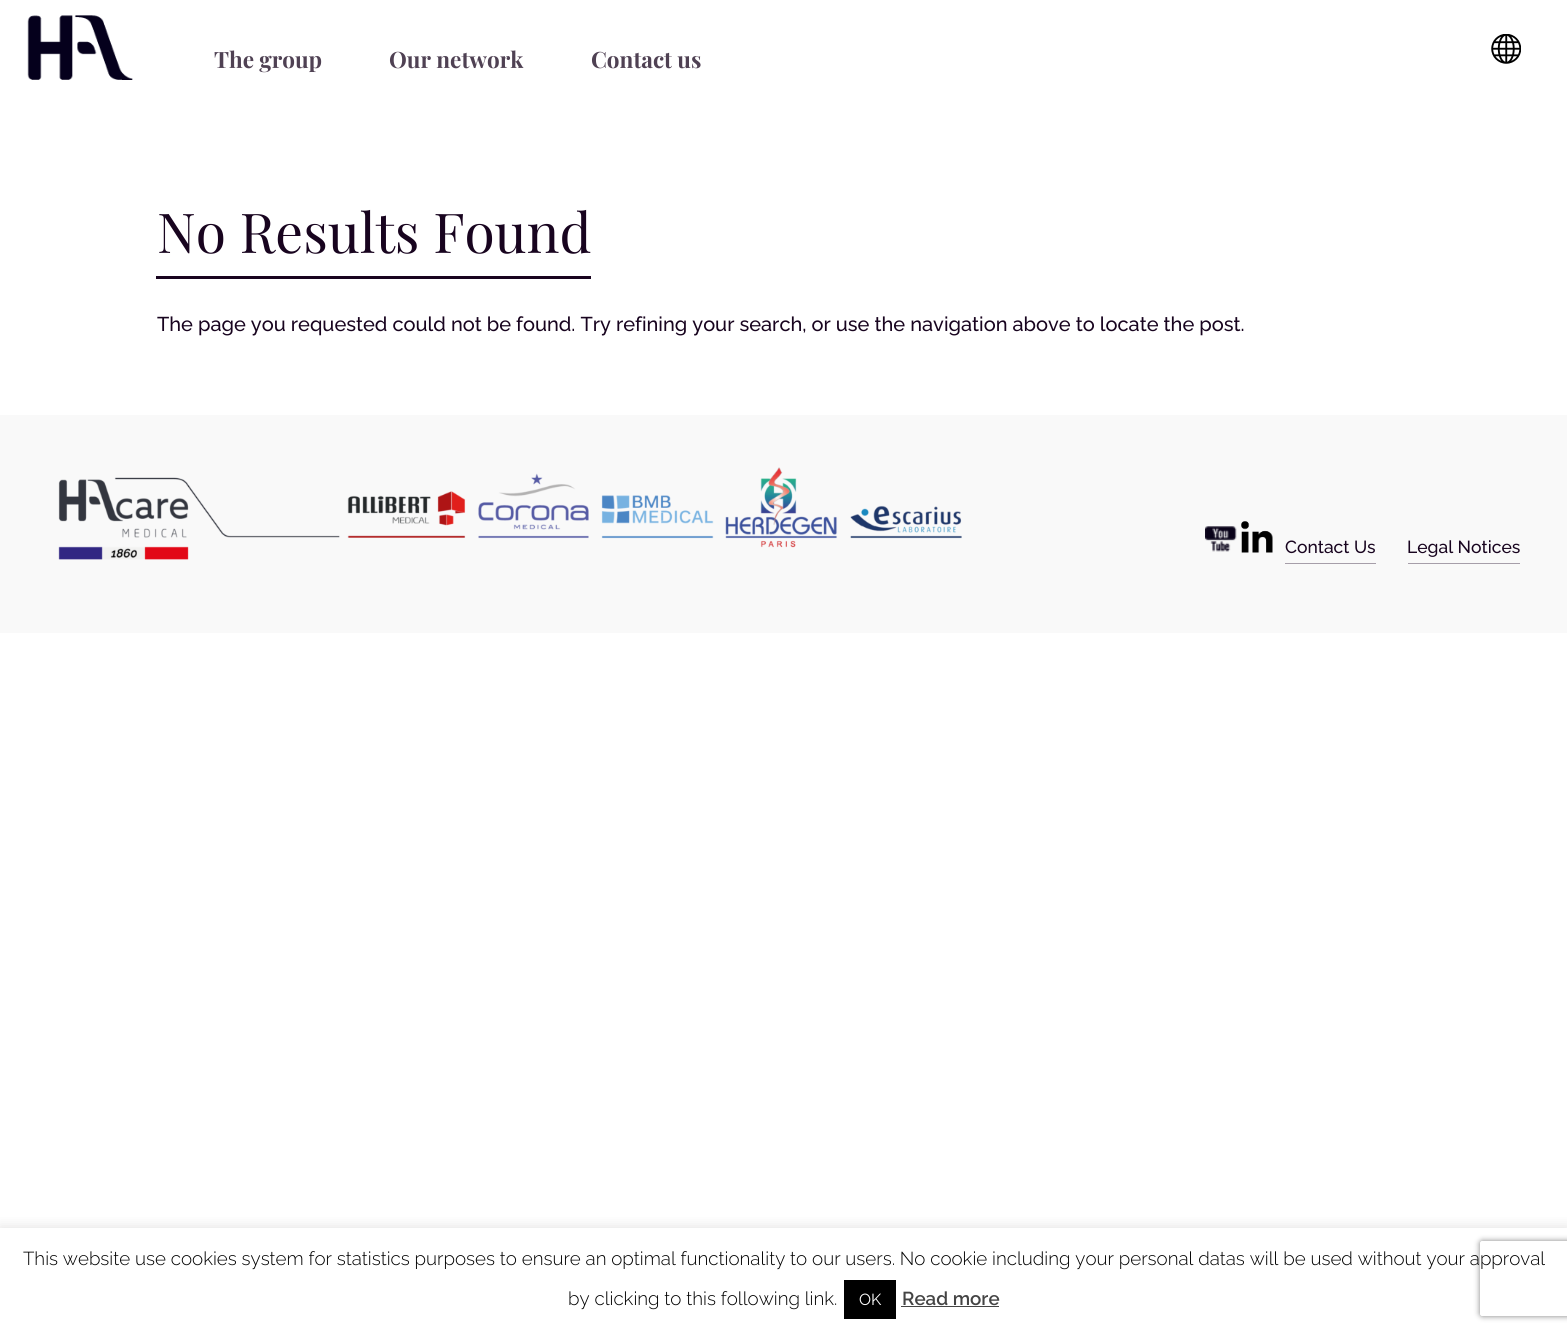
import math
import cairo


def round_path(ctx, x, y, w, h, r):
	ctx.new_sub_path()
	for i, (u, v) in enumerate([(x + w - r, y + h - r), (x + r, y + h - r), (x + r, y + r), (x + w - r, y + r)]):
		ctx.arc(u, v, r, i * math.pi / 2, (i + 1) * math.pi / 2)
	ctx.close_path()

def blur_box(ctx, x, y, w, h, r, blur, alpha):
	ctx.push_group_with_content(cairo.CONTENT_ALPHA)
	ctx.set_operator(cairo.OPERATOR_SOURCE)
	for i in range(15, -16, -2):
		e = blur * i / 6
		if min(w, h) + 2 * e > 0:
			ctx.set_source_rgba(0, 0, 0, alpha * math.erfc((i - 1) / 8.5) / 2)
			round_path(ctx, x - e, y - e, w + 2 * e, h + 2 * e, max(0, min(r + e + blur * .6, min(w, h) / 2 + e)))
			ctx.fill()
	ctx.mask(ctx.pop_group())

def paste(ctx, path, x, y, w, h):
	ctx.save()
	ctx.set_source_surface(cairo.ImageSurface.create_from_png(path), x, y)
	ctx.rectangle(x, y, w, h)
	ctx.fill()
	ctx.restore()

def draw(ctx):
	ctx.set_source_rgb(1, 1, 1)
	ctx.paint()
	paste(ctx, 'media/1.png', 27, 15, 106, 65)
	ctx.select_font_face('Playfair Display', cairo.FONT_SLANT_NORMAL, cairo.FONT_WEIGHT_BOLD)
	ctx.set_font_size(22.5)
	ctx.set_source_rgb(0.31, 0.255, 0.325)
	for x, y, s in [
		(214, 68, 'The group'),
		(389, 68, 'Our network'),
		(591, 68, 'Contact us'),
	]:
		ctx.move_to(x, y)
		ctx.show_text(s)
	paste(ctx, 'media/2.png', 1491, 34, 30, 30)
	ctx.set_source_rgb(0.094, 0.016, 0.122)
	ctx.rectangle(156, 276, 435, 3)
	ctx.fill()
	ctx.select_font_face('Playfair Display')
	ctx.set_font_size(55)
	ctx.move_to(157, 253)
	ctx.show_text('No Results Found')
	ctx.select_font_face('Raleway Medium')
	ctx.set_font_size(20)
	ctx.move_to(157, 331)
	ctx.show_text('The page you requested could not be found. Try refining your search, or use the navigation above to locate the post.')
	ctx.set_source_rgb(0.976, 0.973, 0.976)
	ctx.rectangle(0, 415, 1567, 218)
	ctx.fill()
	paste(ctx, 'media/3.png', 58, 467, 904, 93)
	paste(ctx, 'media/4.png', 1205, 526, 32, 26)
	paste(ctx, 'media/5.png', 1241, 521, 32, 32)
	ctx.set_font_size(17.5)
	ctx.set_source_rgb(0.094, 0.016, 0.122)
	ctx.move_to(1285, 553)
	ctx.show_text('Contact Us')
	ctx.set_source_rgb(0.651, 0.62, 0.663)
	ctx.rectangle(1285, 563, 91, 1)
	ctx.fill()
	ctx.set_source_rgb(0.094, 0.016, 0.122)
	ctx.move_to(1407, 553)
	ctx.show_text('Legal Notices')
	ctx.set_source_rgb(0.651, 0.62, 0.663)
	ctx.rectangle(1408, 563, 112, 1)
	ctx.fill()
	ctx.save()
	ctx.set_fill_rule(cairo.FILL_RULE_EVEN_ODD)
	ctx.new_path()
	ctx.move_to(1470, 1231)
	ctx.line_to(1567, 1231)
	ctx.line_to(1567, 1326)
	ctx.line_to(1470, 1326)
	ctx.close_path()
	ctx.move_to(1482.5, 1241)
	ctx.line_to(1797.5, 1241)
	ctx.curve_to(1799, 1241, 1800, 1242, 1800, 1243.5)
	ctx.line_to(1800, 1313.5)
	ctx.curve_to(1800, 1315, 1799, 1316, 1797.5, 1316)
	ctx.line_to(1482.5, 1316)
	ctx.curve_to(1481, 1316, 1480, 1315, 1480, 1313.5)
	ctx.line_to(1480, 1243.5)
	ctx.curve_to(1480, 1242, 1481, 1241, 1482.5, 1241)
	ctx.close_path()
	ctx.clip()
	ctx.set_source_rgb(0.502, 0.502, 0.502)
	blur_box(ctx, 1480, 1241, 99, 75, 2.5, 3, 1)
	ctx.restore()
	ctx.save()
	ctx.rectangle(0, 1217, 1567, 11)
	ctx.clip()
	ctx.set_source_rgb(0.675, 0.671, 0.671)
	blur_box(ctx, 0, 1226, 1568, 107, 0, 6, 0.3)
	ctx.restore()
	ctx.select_font_face('Raleway Light')
	ctx.set_font_size(18.75)
	ctx.set_source_rgb(0, 0, 0)
	ctx.move_to(23, 1265)
	ctx.show_text('This website use cookies system for statistics purposes to ensure an optimal functionality to our users. No cookie including your personal datas will be used without your approval')
	ctx.move_to(568, 1305)
	ctx.show_text('by clicking to this following link.')
	ctx.rectangle(844, 1280, 52, 39)
	ctx.fill()
	ctx.select_font_face('Raleway')
	ctx.set_font_size(16)
	ctx.set_source_rgb(1, 1, 1)
	ctx.move_to(859, 1305)
	ctx.show_text('OK')
	ctx.select_font_face('Raleway SemiBold')
	ctx.set_font_size(18.75)
	ctx.set_source_rgb(0.267, 0.267, 0.267)
	ctx.move_to(902, 1305)
	ctx.show_text('Read more')
	ctx.rectangle(901, 1306, 98, 1)
	ctx.fill()


surface = cairo.ImageSurface(cairo.FORMAT_RGB24, 1567, 1333)
ctx = cairo.Context(surface)
options = cairo.FontOptions()
options.set_hint_metrics(cairo.HINT_METRICS_OFF)
options.set_hint_style(cairo.HINT_STYLE_NONE)
ctx.set_font_options(options)
ctx.set_miter_limit(4)
draw(ctx)
surface.write_to_png('image.png')
